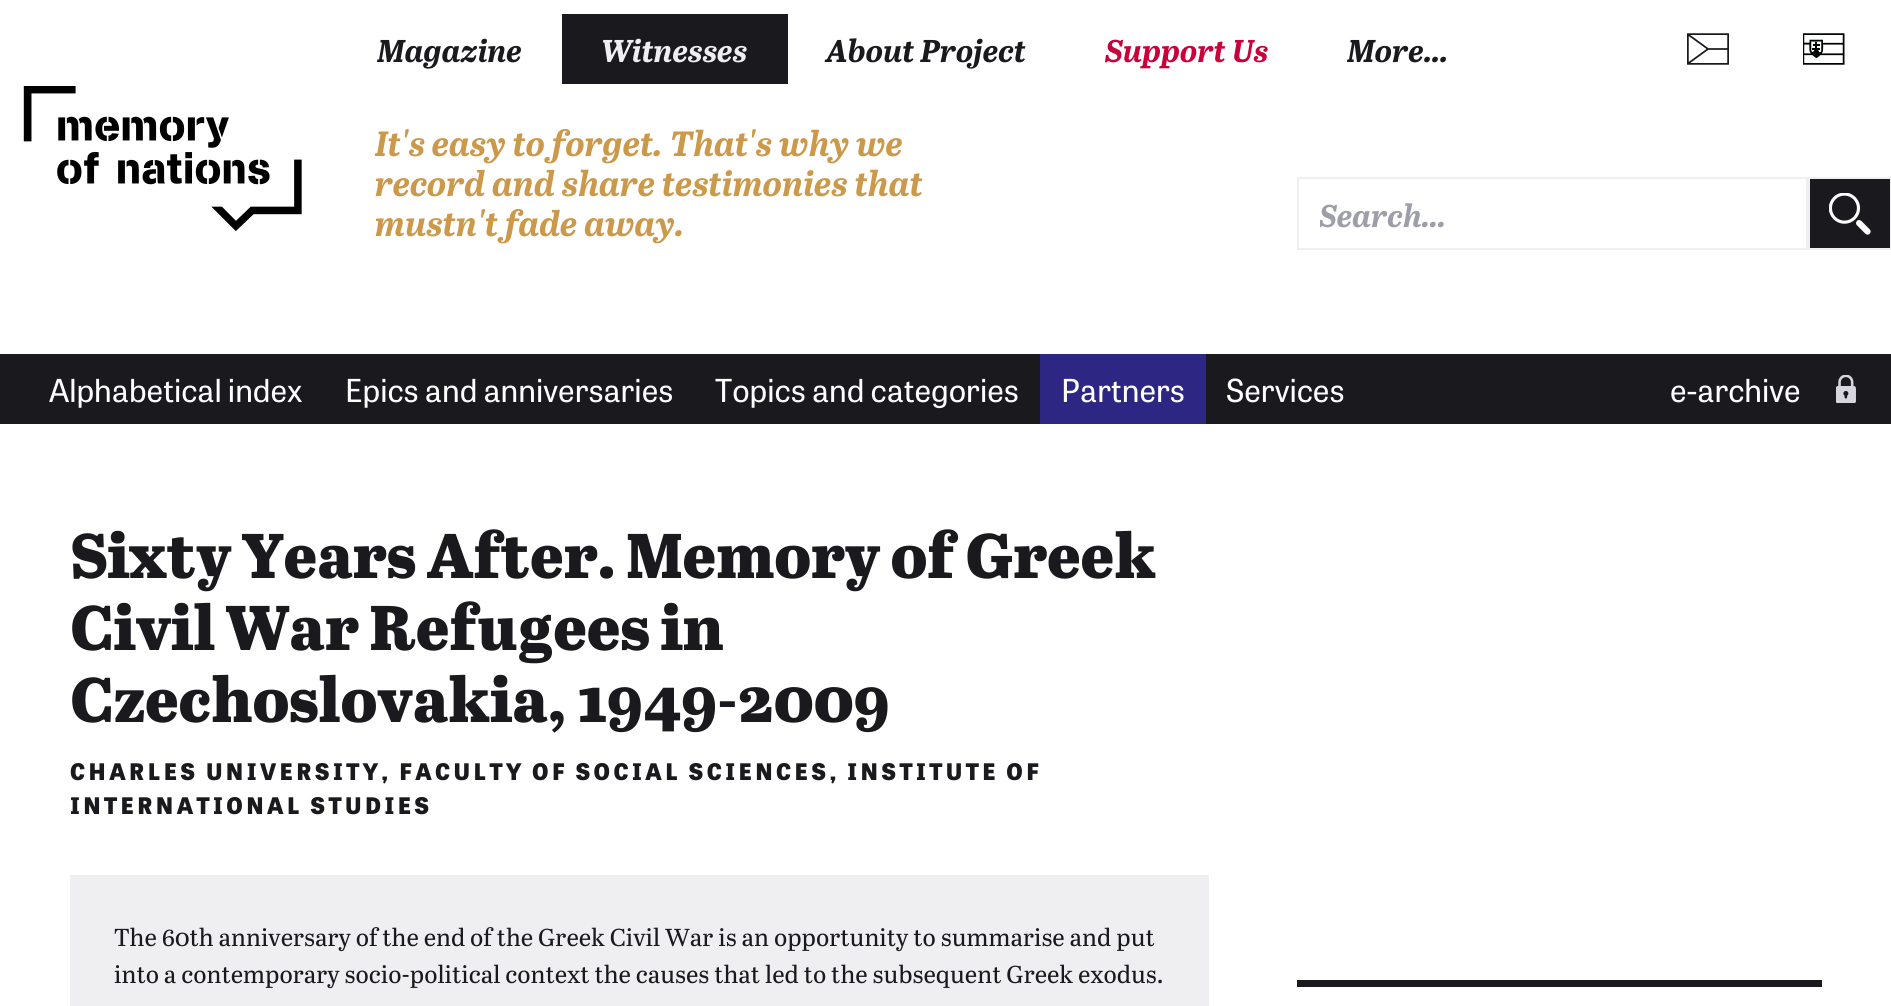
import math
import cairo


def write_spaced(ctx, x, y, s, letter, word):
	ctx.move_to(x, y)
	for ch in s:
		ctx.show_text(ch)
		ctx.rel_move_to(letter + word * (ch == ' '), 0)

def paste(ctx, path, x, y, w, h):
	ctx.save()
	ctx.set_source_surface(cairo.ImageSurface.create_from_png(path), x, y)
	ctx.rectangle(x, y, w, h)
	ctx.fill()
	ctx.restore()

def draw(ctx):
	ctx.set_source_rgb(1, 1, 1)
	ctx.paint()
	ctx.select_font_face('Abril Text', cairo.FONT_SLANT_ITALIC, cairo.FONT_WEIGHT_BOLD)
	ctx.set_font_size(31.5)
	ctx.set_source_rgb(0.102, 0.102, 0.118)
	ctx.move_to(377, 62)
	ctx.show_text('Magazine')
	ctx.rectangle(562, 14, 226, 70)
	ctx.fill()
	ctx.set_source_rgb(0.937, 0.937, 0.949)
	ctx.move_to(601, 62)
	ctx.show_text('Witnesses')
	ctx.set_source_rgb(0.102, 0.102, 0.118)
	ctx.move_to(826, 62)
	ctx.show_text('About Project')
	ctx.set_source_rgb(0.792, 0, 0.227)
	ctx.move_to(1105, 62)
	ctx.show_text('Support Us')
	ctx.set_source_rgb(0.102, 0.102, 0.118)
	ctx.move_to(1347, 62)
	ctx.show_text('More…')
	paste(ctx, 'media/1.png', 23, 86, 279, 145)
	ctx.set_font_size(35)
	ctx.set_source_rgb(0.8, 0.596, 0.286)
	for x, y, s in [
		(375, 156, 'It\'s easy to forget. That\'s why we'),
		(375, 196, 'record and share testimonies that'),
		(375, 236, 'mustn\'t fade away.'),
	]:
		ctx.move_to(x, y)
		ctx.show_text(s)
	paste(ctx, 'media/2.png', 1687, 33, 42, 32)
	paste(ctx, 'media/3.png', 1803, 33, 42, 32)
	ctx.rectangle(1298, 178, 509, 71)
	ctx.set_source_rgb(0.937, 0.937, 0.949)
	ctx.stroke()
	ctx.save()
	ctx.rectangle(1320, 193, 460, 43)
	ctx.clip()
	ctx.set_font_size(31.5)
	ctx.set_source_rgb(0.62, 0.62, 0.663)
	ctx.move_to(1319, 227)
	ctx.show_text('Search…')
	ctx.restore()
	ctx.set_source_rgb(0.102, 0.102, 0.118)
	ctx.rectangle(1810, 179, 80, 69)
	ctx.fill()
	paste(ctx, 'media/4.png', 1829, 193, 42, 42)
	ctx.rectangle(1809, 178, 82, 71)
	ctx.set_source_rgb(0.937, 0.937, 0.949)
	ctx.stroke()
	ctx.set_source_rgb(0.102, 0.102, 0.118)
	ctx.rectangle(0, 354, 1891, 70)
	ctx.fill()
	ctx.select_font_face('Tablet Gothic')
	ctx.set_font_size(31.5)
	ctx.set_source_rgb(1, 1, 1)
	for x, y, s in [
		(49, 402, 'Alphabetical index'),
		(345, 402, 'Epics and anniversaries'),
		(715, 402, 'Topics and categories'),
	]:
		ctx.move_to(x, y)
		ctx.show_text(s)
	ctx.set_source_rgb(0.176, 0.149, 0.51)
	ctx.rectangle(1040, 354, 166, 70)
	ctx.fill()
	ctx.set_source_rgb(1, 1, 1)
	ctx.move_to(1061, 402)
	ctx.show_text('Partners')
	ctx.move_to(1226, 402)
	ctx.show_text('Services')
	paste(ctx, 'media/5.png', 1836, 375, 20, 28)
	ctx.move_to(1670, 402)
	ctx.show_text('e-archive')
	ctx.select_font_face('Abril Text ExtraBold')
	ctx.set_font_size(63)
	ctx.set_source_rgb(0.102, 0.102, 0.118)
	for x, y, s in [
		(70, 578, 'Sixty Years After. Memory of Greek'),
		(70, 650, 'Civil War Refugees in'),
		(70, 722, 'Czechoslovakia, 1949-2009'),
	]:
		ctx.move_to(x, y)
		ctx.show_text(s)
	ctx.select_font_face('Tablet Gothic ExtraBold')
	ctx.set_font_size(22.75)
	write_spaced(ctx, 70, 780, 'CHARLES UNIVERSITY, FACULTY OF SOCIAL SCIENCES, INSTITUTE OF', 3.4, 0)
	write_spaced(ctx, 70, 814, 'INTERNATIONAL STUDIES', 3.4, 0)
	ctx.set_source_rgb(0.937, 0.937, 0.949)
	ctx.rectangle(70, 875, 1139, 131)
	ctx.fill()
	ctx.select_font_face('Abril Text')
	ctx.set_font_size(24.5)
	ctx.set_source_rgb(0.102, 0.102, 0.118)
	ctx.move_to(114, 946)
	ctx.show_text('The 60th anniversary of the end of the Greek Civil War is an opportunity to summarise and put')
	ctx.move_to(114, 983)
	ctx.show_text('into a contemporary socio-political context the causes that led to the subsequent Greek exodus.')
	ctx.rectangle(1297, 980, 525, 7)
	ctx.fill()


surface = cairo.ImageSurface(cairo.FORMAT_RGB24, 1891, 1006)
ctx = cairo.Context(surface)
options = cairo.FontOptions()
options.set_hint_metrics(cairo.HINT_METRICS_OFF)
options.set_hint_style(cairo.HINT_STYLE_NONE)
ctx.set_font_options(options)
ctx.set_miter_limit(4)
draw(ctx)
surface.write_to_png('image.png')
